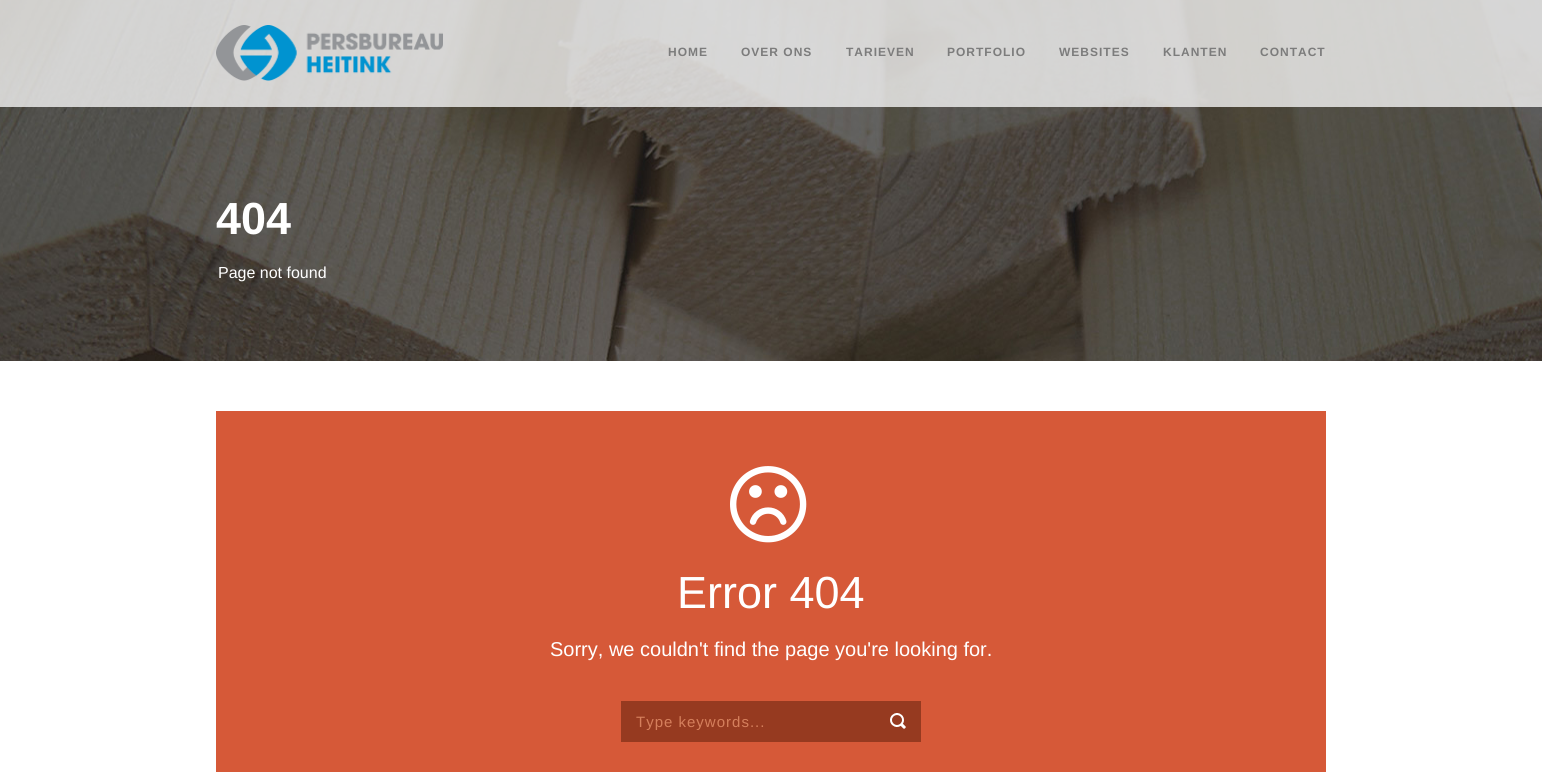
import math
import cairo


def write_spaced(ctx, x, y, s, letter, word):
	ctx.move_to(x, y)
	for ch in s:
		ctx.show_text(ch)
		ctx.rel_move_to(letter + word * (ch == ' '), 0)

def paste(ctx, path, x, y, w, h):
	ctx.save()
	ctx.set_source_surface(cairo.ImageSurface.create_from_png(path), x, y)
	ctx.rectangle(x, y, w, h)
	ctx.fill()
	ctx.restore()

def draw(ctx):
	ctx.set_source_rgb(1, 1, 1)
	ctx.paint()
	paste(ctx, 'media/2.png', 0, 0, 1542, 361)
	ctx.set_source_rgba(1, 1, 1, 0.75)
	ctx.rectangle(0, 0, 1542, 107)
	ctx.fill()
	paste(ctx, 'media/1.png', 216, 25, 227, 56)
	ctx.select_font_face('Liberation Sans', cairo.FONT_SLANT_NORMAL, cairo.FONT_WEIGHT_BOLD)
	ctx.set_font_size(12)
	ctx.set_source_rgb(0.486, 0.486, 0.486)
	for x, y, s in [
		(668, 56, 'HOME'),
		(741, 56, 'OVER ONS'),
		(846, 56, 'TARIEVEN'),
		(947, 56, 'PORTFOLIO'),
		(1059, 56, 'WEBSITES'),
		(1163, 56, 'KLANTEN'),
		(1260, 56, 'CONTACT'),
	]:
		write_spaced(ctx, x, y, s, 1, 0)
	ctx.set_font_size(45)
	ctx.set_source_rgb(1, 1, 1)
	ctx.move_to(216, 234)
	ctx.show_text('404')
	ctx.select_font_face('Liberation Sans')
	ctx.set_font_size(16)
	ctx.move_to(218, 278)
	ctx.show_text('Page not found')
	ctx.set_source_rgb(0.839, 0.349, 0.22)
	ctx.rectangle(216, 411, 1110, 361)
	ctx.fill()
	paste(ctx, 'media/3.png', 730, 466, 77, 77)
	ctx.set_font_size(45)
	ctx.set_source_rgb(1, 1, 1)
	ctx.move_to(677, 608)
	ctx.show_text('Error 404')
	ctx.set_font_size(20)
	ctx.move_to(550, 656)
	ctx.show_text('Sorry, we couldn\'t find the page you\'re looking for.')
	ctx.set_source_rgb(0.588, 0.227, 0.125)
	ctx.rectangle(621, 701, 300, 41)
	ctx.fill()
	ctx.save()
	ctx.rectangle(636, 713, 270, 17)
	ctx.clip()
	ctx.set_font_size(15)
	ctx.set_source_rgb(0.835, 0.498, 0.361)
	write_spaced(ctx, 636, 727, 'Type keywords...', 1, 0)
	ctx.restore()
	paste(ctx, 'media/4.png', 890, 713, 16, 16)


surface = cairo.ImageSurface(cairo.FORMAT_RGB24, 1542, 772)
ctx = cairo.Context(surface)
options = cairo.FontOptions()
options.set_hint_metrics(cairo.HINT_METRICS_OFF)
options.set_hint_style(cairo.HINT_STYLE_NONE)
ctx.set_font_options(options)
ctx.set_miter_limit(4)
draw(ctx)
surface.write_to_png('image.png')
